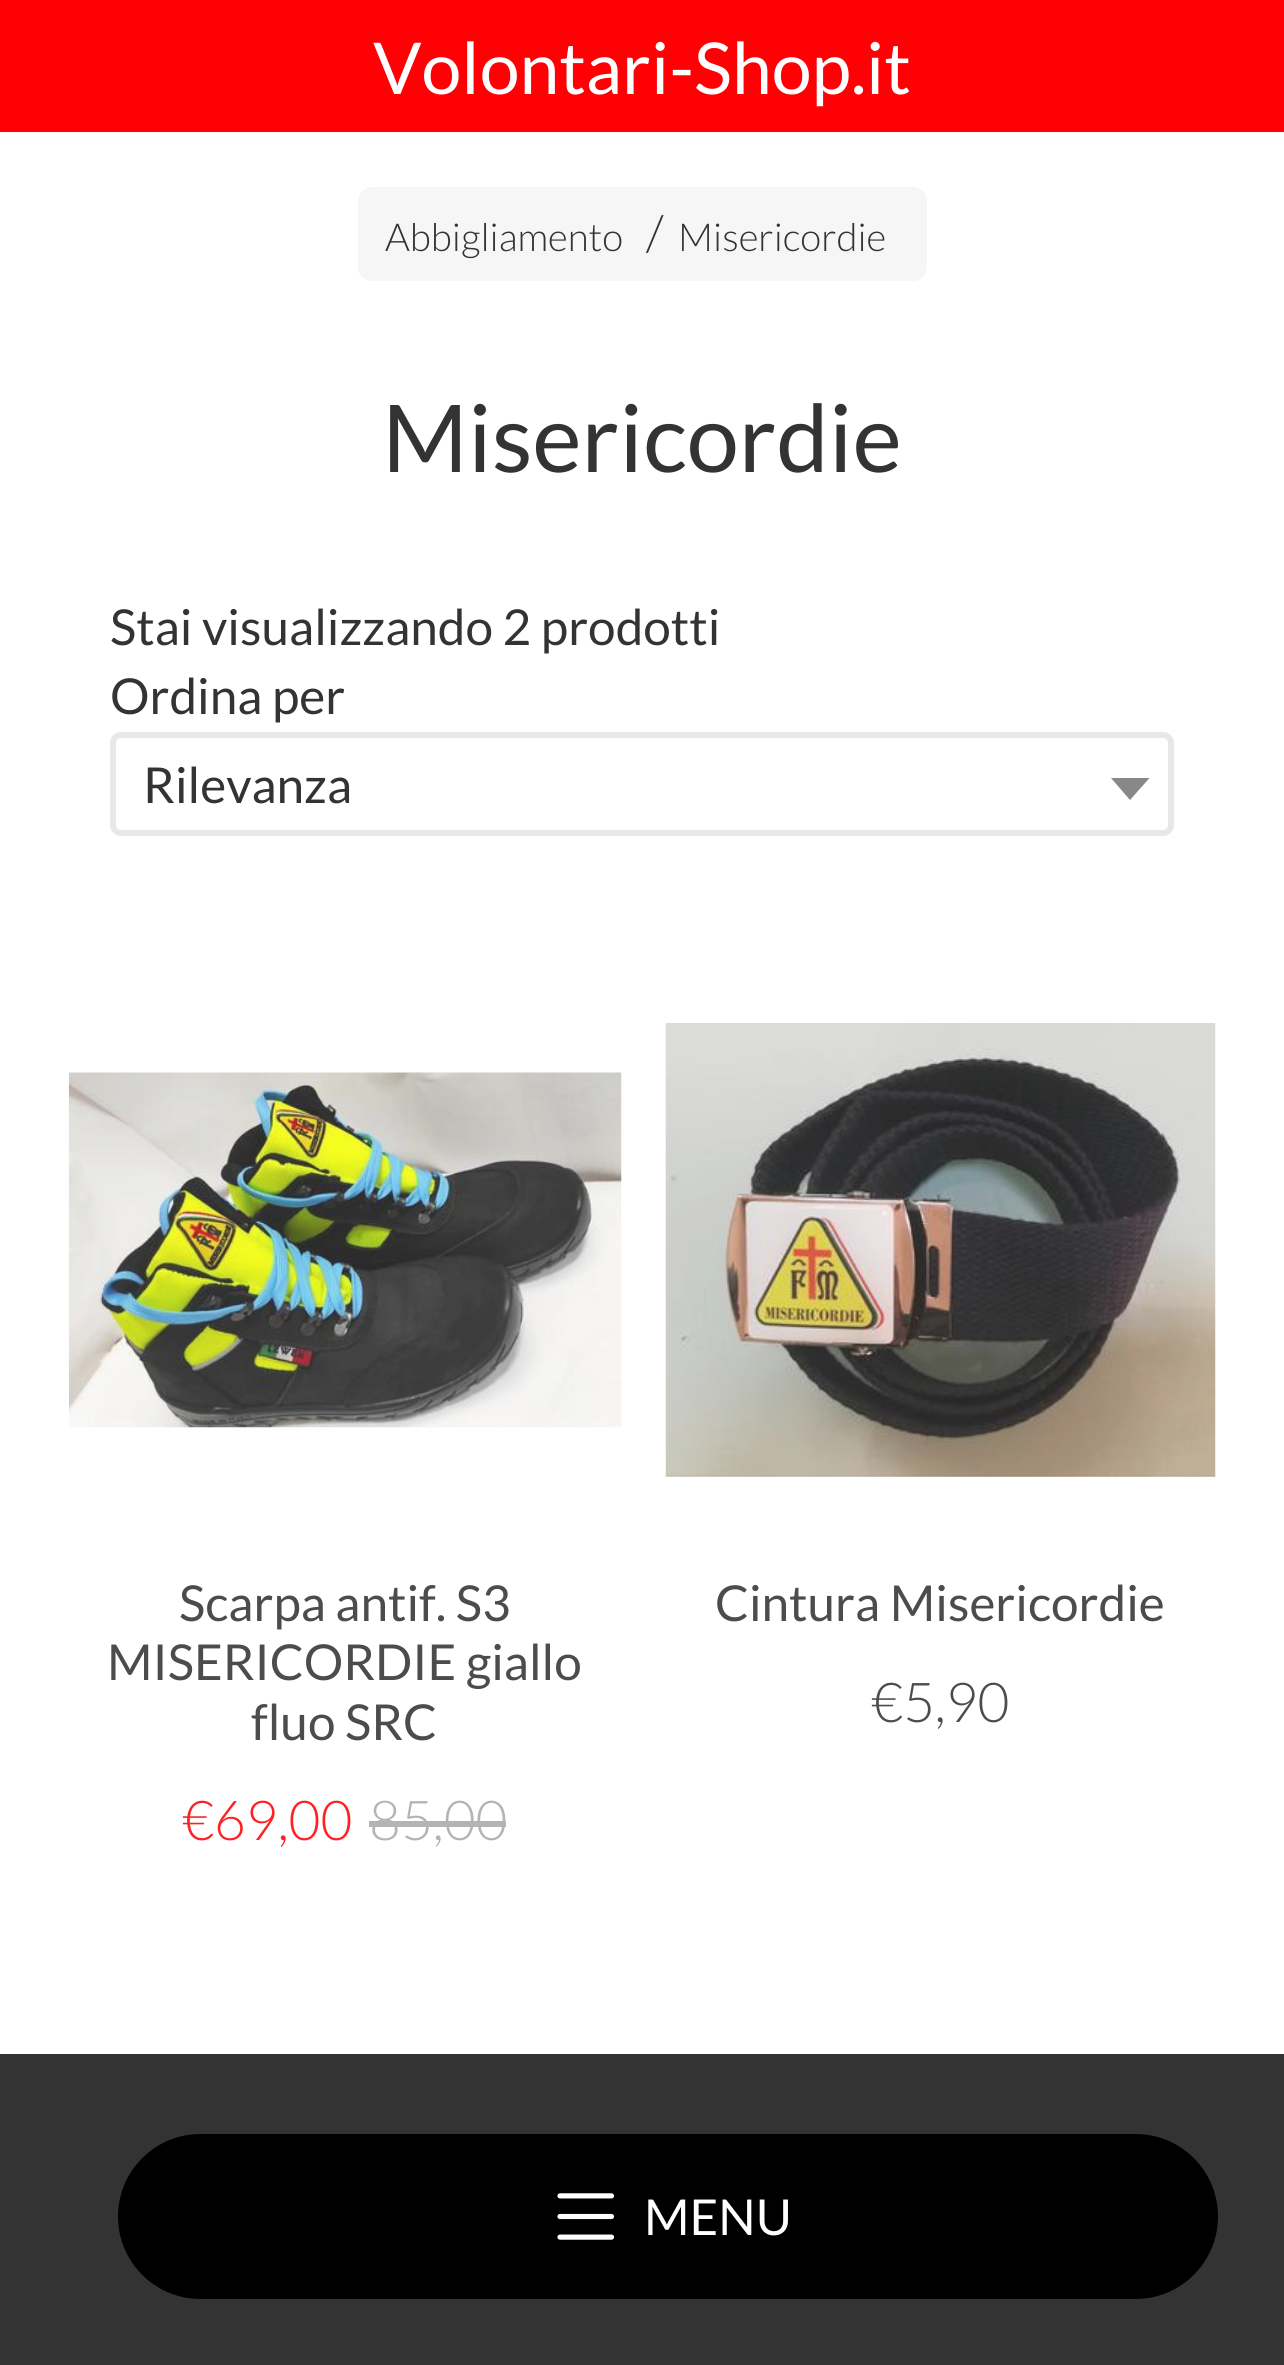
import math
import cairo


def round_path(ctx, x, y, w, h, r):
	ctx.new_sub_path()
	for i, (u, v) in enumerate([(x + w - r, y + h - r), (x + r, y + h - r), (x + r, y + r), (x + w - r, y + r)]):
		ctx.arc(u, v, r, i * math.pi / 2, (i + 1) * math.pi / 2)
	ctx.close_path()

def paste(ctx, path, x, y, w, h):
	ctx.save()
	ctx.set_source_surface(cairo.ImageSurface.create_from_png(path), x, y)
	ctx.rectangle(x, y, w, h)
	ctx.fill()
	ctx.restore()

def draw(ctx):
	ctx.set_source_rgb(1, 1, 1)
	ctx.paint()
	ctx.set_source_rgb(1, 0.004, 0.02)
	ctx.rectangle(0, 0, 1284, 132)
	ctx.fill()
	ctx.select_font_face('Lato')
	ctx.set_font_size(71.5)
	ctx.set_source_rgb(1, 1, 1)
	ctx.move_to(373, 94)
	ctx.show_text('Volontari-Shop.it')
	ctx.set_source_rgb(0.961, 0.961, 0.961)
	round_path(ctx, 358, 187, 569, 94, 14)
	ctx.fill()
	ctx.select_font_face('Lato Light')
	ctx.set_font_size(38.5)
	ctx.set_source_rgb(0.2, 0.2, 0.2)
	ctx.move_to(385, 251)
	ctx.show_text('Abbigliamento')
	ctx.set_font_size(49.5)
	ctx.move_to(646, 251)
	ctx.show_text('/')
	ctx.set_font_size(38.5)
	ctx.move_to(678, 251)
	ctx.show_text('Misericordie')
	ctx.select_font_face('Lato')
	ctx.set_font_size(93.5)
	ctx.move_to(382, 472)
	ctx.show_text('Misericordie')
	ctx.set_font_size(49.5)
	ctx.move_to(110, 645)
	ctx.show_text('Stai visualizzando 2 prodotti')
	ctx.move_to(110, 714)
	ctx.show_text('Ordina per')
	round_path(ctx, 113, 735, 1058, 98, 8)
	ctx.set_source_rgb(0.91, 0.91, 0.91)
	ctx.set_line_width(6)
	ctx.stroke()
	ctx.set_source_rgb(0.2, 0.2, 0.2)
	ctx.move_to(143, 803)
	ctx.show_text('Rilevanza')
	ctx.set_source_rgb(0.533, 0.533, 0.533)
	ctx.new_path()
	ctx.move_to(1111, 778)
	ctx.line_to(1149.5, 778)
	ctx.line_to(1130, 800)
	ctx.close_path()
	ctx.fill()
	paste(ctx, 'media/1.png', 68, 1072, 554, 356)
	ctx.set_source_rgb(0.298, 0.298, 0.298)
	for x, y, s in [
		(179, 1621, 'Scarpa antif. S3'),
		(107, 1680, 'MISERICORDIE giallo'),
		(251, 1740, 'fluo SRC'),
	]:
		ctx.move_to(x, y)
		ctx.show_text(s)
	ctx.select_font_face('Lato Light')
	ctx.set_font_size(55)
	ctx.set_source_rgb(1, 0.125, 0.141)
	ctx.move_to(182, 1840)
	ctx.show_text('€69,00')
	ctx.set_source_rgb(0.706, 0.706, 0.706)
	ctx.move_to(369, 1840)
	ctx.show_text('85,00')
	ctx.rectangle(369, 1821, 137, 6)
	ctx.fill()
	paste(ctx, 'media/2.png', 665, 1023, 551, 454)
	ctx.select_font_face('Lato')
	ctx.set_font_size(49.5)
	ctx.set_source_rgb(0.298, 0.298, 0.298)
	ctx.move_to(715, 1621)
	ctx.show_text('Cintura Misericordie')
	ctx.select_font_face('Lato Light')
	ctx.set_font_size(55)
	ctx.move_to(871, 1722)
	ctx.show_text('€5,90')
	ctx.set_source_rgb(0.2, 0.2, 0.2)
	ctx.rectangle(0, 2054, 1284, 311)
	ctx.fill()
	ctx.set_source_rgb(0, 0, 0)
	round_path(ctx, 118, 2134, 1100, 165, 82.5)
	ctx.fill()
	paste(ctx, 'media/3.png', 557, 2193, 58, 47)
	ctx.select_font_face('Lato')
	ctx.set_font_size(49.5)
	ctx.set_source_rgb(1, 1, 1)
	ctx.move_to(644, 2235)
	ctx.show_text('MENU')


surface = cairo.ImageSurface(cairo.FORMAT_RGB24, 1284, 2365)
ctx = cairo.Context(surface)
options = cairo.FontOptions()
options.set_hint_metrics(cairo.HINT_METRICS_OFF)
options.set_hint_style(cairo.HINT_STYLE_NONE)
ctx.set_font_options(options)
ctx.set_miter_limit(4)
draw(ctx)
surface.write_to_png('image.png')
